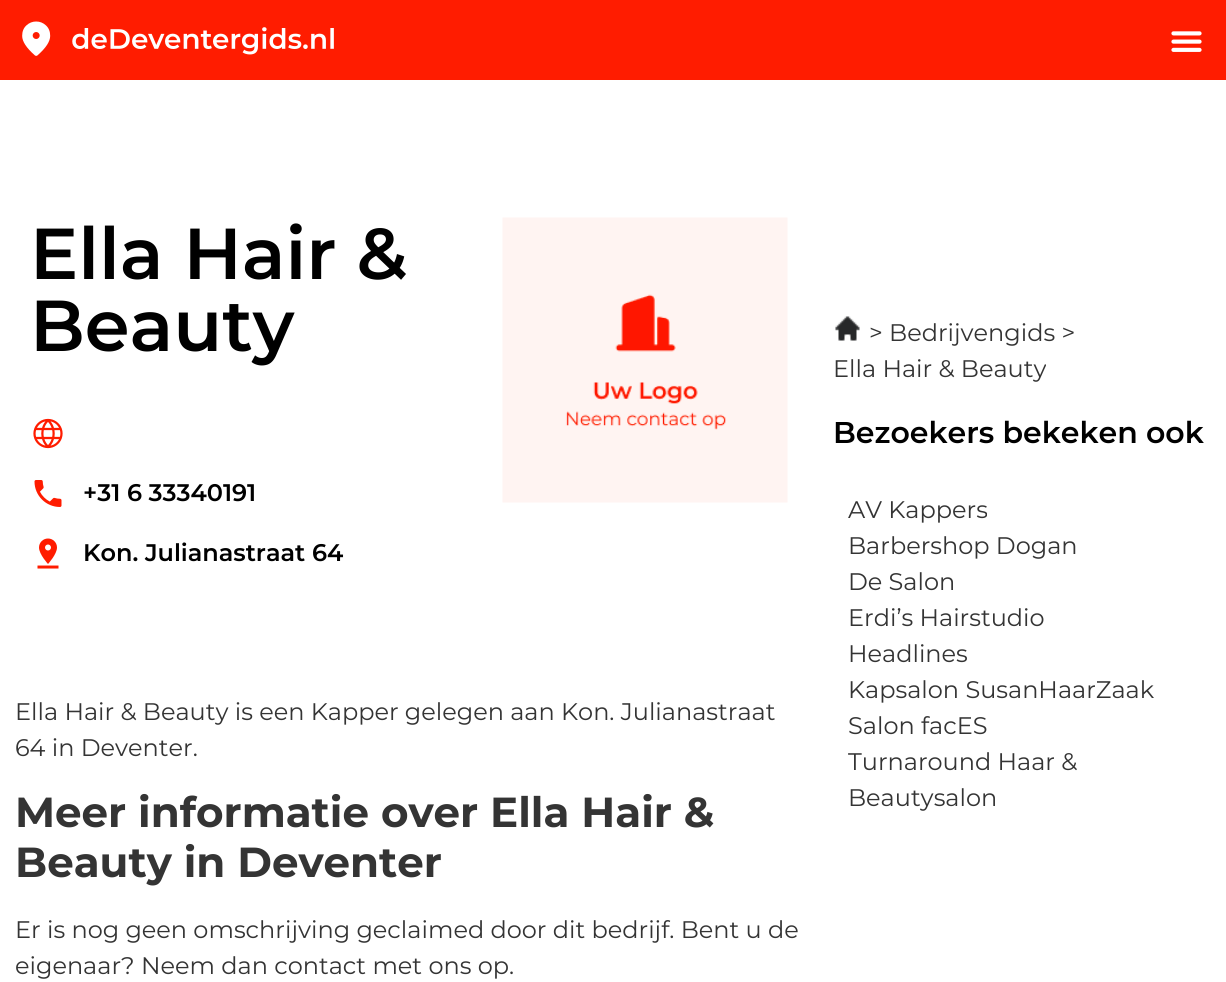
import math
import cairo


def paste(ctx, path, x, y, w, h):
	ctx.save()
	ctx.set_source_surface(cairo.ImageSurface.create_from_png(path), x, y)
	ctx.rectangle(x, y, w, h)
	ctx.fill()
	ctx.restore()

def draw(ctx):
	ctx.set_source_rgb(1, 1, 1)
	ctx.paint()
	ctx.set_source_rgb(1, 0.11, 0)
	ctx.rectangle(0, 0, 1226, 80)
	ctx.fill()
	paste(ctx, 'media/1.png', 22, 21, 312, 35)
	paste(ctx, 'media/2.png', 1171, 31, 31, 21)
	ctx.select_font_face('Montserrat SemiBold')
	ctx.set_font_size(72)
	ctx.set_source_rgb(0, 0, 0)
	ctx.move_to(30, 279)
	ctx.show_text('Ella Hair &')
	ctx.move_to(30, 351)
	ctx.show_text('Beauty')
	paste(ctx, 'media/3.png', 33, 418, 30, 31)
	paste(ctx, 'media/4.png', 34, 480, 28, 27)
	ctx.set_font_size(24)
	ctx.move_to(83, 501)
	ctx.show_text('+31 6 33340191')
	paste(ctx, 'media/5.png', 37, 538, 22, 31)
	ctx.move_to(83, 561)
	ctx.show_text('Kon. Julianastraat 64')
	paste(ctx, 'media/6.png', 502, 217, 286, 286)
	ctx.select_font_face('Montserrat')
	ctx.set_source_rgb(0.204, 0.204, 0.204)
	ctx.move_to(15, 720)
	ctx.show_text('Ella Hair & Beauty is een Kapper gelegen aan Kon. Julianastraat')
	ctx.move_to(15, 756)
	ctx.show_text('64 in Deventer.')
	ctx.select_font_face('Montserrat', cairo.FONT_SLANT_NORMAL, cairo.FONT_WEIGHT_BOLD)
	ctx.set_font_size(42)
	ctx.move_to(15, 827)
	ctx.show_text('Meer informatie over Ella Hair &')
	ctx.move_to(15, 877)
	ctx.show_text('Beauty in Deventer')
	ctx.select_font_face('Montserrat')
	ctx.set_font_size(24)
	ctx.move_to(15, 938)
	ctx.show_text('Er is nog geen omschrijving geclaimed door dit bedrijf. Bent u de')
	ctx.move_to(15, 974)
	ctx.show_text('eigenaar? Neem dan contact met ons op.')
	paste(ctx, 'media/7.png', 835, 316, 25, 25)
	ctx.move_to(869, 341)
	ctx.show_text('> Bedrijvengids >')
	ctx.move_to(833, 377)
	ctx.show_text('Ella Hair & Beauty')
	ctx.select_font_face('Montserrat SemiBold')
	ctx.set_font_size(30)
	ctx.set_source_rgb(0, 0, 0)
	ctx.move_to(833, 443)
	ctx.show_text('Bezoekers bekeken ook')
	ctx.select_font_face('Montserrat')
	ctx.set_font_size(24)
	ctx.set_source_rgb(0.204, 0.204, 0.204)
	for x, y, s in [
		(848, 518, 'AV Kappers'),
		(848, 554, 'Barbershop Dogan'),
		(848, 590, 'De Salon'),
		(848, 626, 'Erdi’s Hairstudio'),
		(848, 662, 'Headlines'),
		(848, 698, 'Kapsalon SusanHaarZaak'),
		(848, 734, 'Salon facES'),
		(848, 770, 'Turnaround Haar &'),
		(848, 806, 'Beautysalon'),
	]:
		ctx.move_to(x, y)
		ctx.show_text(s)


surface = cairo.ImageSurface(cairo.FORMAT_RGB24, 1226, 982)
ctx = cairo.Context(surface)
options = cairo.FontOptions()
options.set_hint_metrics(cairo.HINT_METRICS_OFF)
options.set_hint_style(cairo.HINT_STYLE_NONE)
ctx.set_font_options(options)
ctx.set_miter_limit(4)
draw(ctx)
surface.write_to_png('image.png')
